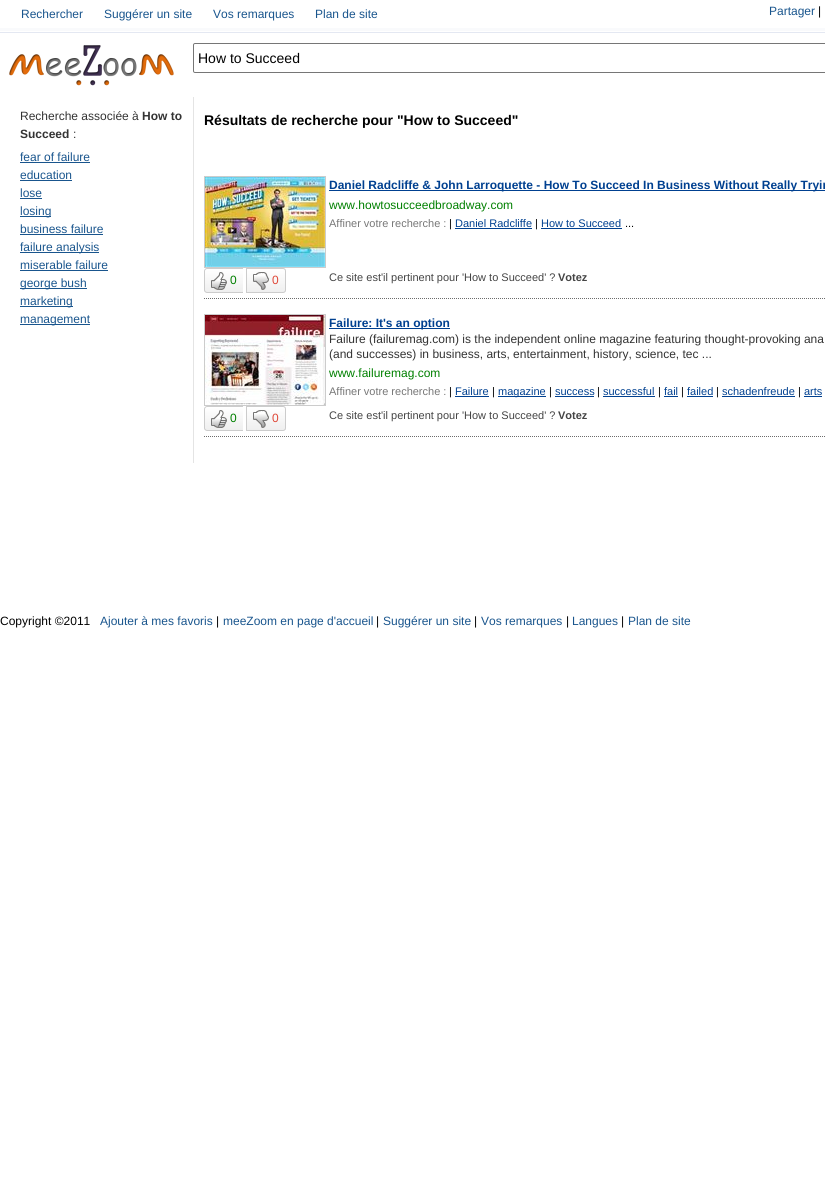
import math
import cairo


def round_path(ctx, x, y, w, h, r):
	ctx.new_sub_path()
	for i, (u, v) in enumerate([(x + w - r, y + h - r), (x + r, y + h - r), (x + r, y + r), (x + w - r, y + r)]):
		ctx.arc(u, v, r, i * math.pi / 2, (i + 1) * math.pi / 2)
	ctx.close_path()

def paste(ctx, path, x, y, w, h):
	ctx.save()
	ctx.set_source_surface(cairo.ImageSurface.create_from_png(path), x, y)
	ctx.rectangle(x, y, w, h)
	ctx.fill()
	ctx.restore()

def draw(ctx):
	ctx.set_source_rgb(1, 1, 1)
	ctx.paint()
	ctx.set_source_rgb(0.976, 0.98, 0.988)
	ctx.rectangle(0, 28, 825, 3)
	ctx.fill()
	ctx.set_source_rgb(0.894, 0.91, 0.949)
	ctx.rectangle(0, 32, 825, 1)
	ctx.fill()
	ctx.select_font_face('Liberation Sans')
	ctx.set_font_size(12)
	ctx.set_source_rgb(0.098, 0.333, 0.553)
	for x, y, s in [
		(21, 18, 'Rechercher'),
		(104, 18, 'Suggérer un site'),
		(213, 18, 'Vos remarques'),
		(315, 18, 'Plan de site'),
		(769, 15, 'Partager'),
	]:
		ctx.move_to(x, y)
		ctx.show_text(s)
	ctx.set_source_rgb(0, 0, 0)
	ctx.move_to(818, 15)
	ctx.show_text('|')
	paste(ctx, 'media/1.png', 9, 45, 165, 41)
	round_path(ctx, 193.5, 43.5, 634, 29, 1.5)
	ctx.set_source_rgb(0.463, 0.463, 0.463)
	ctx.set_line_width(1)
	ctx.stroke()
	ctx.set_font_size(14)
	ctx.set_source_rgb(0, 0, 0)
	ctx.move_to(198, 63)
	ctx.show_text('How to Succeed')
	ctx.set_source_rgb(0.894, 0.894, 0.894)
	ctx.rectangle(193, 97, 1, 366)
	ctx.fill()
	ctx.set_font_size(12)
	ctx.set_source_rgb(0.2, 0.2, 0.2)
	ctx.move_to(20, 120)
	ctx.show_text('Recherche associée à')
	ctx.select_font_face('Liberation Sans', cairo.FONT_SLANT_NORMAL, cairo.FONT_WEIGHT_BOLD)
	ctx.move_to(142, 120)
	ctx.show_text('How to')
	ctx.move_to(20, 138)
	ctx.show_text('Succeed')
	ctx.select_font_face('Liberation Sans')
	ctx.move_to(73, 138)
	ctx.show_text(':')
	ctx.set_source_rgb(0.098, 0.333, 0.553)
	ctx.move_to(20, 161)
	ctx.show_text('fear of failure')
	ctx.rectangle(20, 162, 70, 1)
	ctx.fill()
	ctx.move_to(20, 179)
	ctx.show_text('education')
	ctx.rectangle(20, 180, 52, 1)
	ctx.fill()
	ctx.move_to(20, 197)
	ctx.show_text('lose')
	ctx.rectangle(20, 198, 22, 1)
	ctx.fill()
	ctx.rectangle(20, 216, 31, 1)
	ctx.fill()
	ctx.move_to(20, 215)
	ctx.show_text('losing')
	ctx.move_to(20, 233)
	ctx.show_text('business failure')
	ctx.rectangle(20, 234, 83, 1)
	ctx.fill()
	ctx.rectangle(20, 252, 79, 1)
	ctx.fill()
	ctx.move_to(20, 251)
	ctx.show_text('failure analysis')
	ctx.move_to(20, 269)
	ctx.show_text('miserable failure')
	ctx.rectangle(20, 270, 88, 1)
	ctx.fill()
	ctx.rectangle(20, 288, 67, 1)
	ctx.fill()
	ctx.move_to(20, 287)
	ctx.show_text('george bush')
	ctx.rectangle(20, 306, 53, 1)
	ctx.fill()
	ctx.move_to(20, 305)
	ctx.show_text('marketing')
	ctx.rectangle(20, 324, 70, 1)
	ctx.fill()
	ctx.move_to(20, 323)
	ctx.show_text('management')
	ctx.select_font_face('Liberation Sans', cairo.FONT_SLANT_NORMAL, cairo.FONT_WEIGHT_BOLD)
	ctx.set_font_size(14)
	ctx.set_source_rgb(0, 0, 0)
	ctx.move_to(204, 125)
	ctx.show_text('Résultats de recherche pour "How to Succeed"')
	ctx.rectangle(204.5, 176.5, 121, 91)
	ctx.set_source_rgb(0.8, 0.8, 0.8)
	ctx.stroke()
	paste(ctx, 'media/2.png', 205, 177, 120, 90)
	ctx.set_source_rgb(0, 0.251, 0.565)
	ctx.rectangle(329, 190, 496, 1)
	ctx.fill()
	ctx.set_font_size(12)
	ctx.move_to(329, 189)
	ctx.show_text('Daniel Radcliffe & John Larroquette - How To Succeed In Business Without Really Tryin')
	ctx.select_font_face('Liberation Sans')
	ctx.set_source_rgb(0, 0.502, 0)
	ctx.move_to(329, 209)
	ctx.show_text('www.howtosucceedbroadway.com')
	ctx.set_font_size(11)
	ctx.set_source_rgb(0.467, 0.467, 0.467)
	ctx.move_to(329, 227)
	ctx.show_text('Affiner votre recherche :')
	ctx.set_source_rgb(0, 0, 0)
	ctx.move_to(449, 227)
	ctx.show_text('|')
	ctx.set_source_rgb(0, 0.251, 0.565)
	ctx.move_to(455, 227)
	ctx.show_text('Daniel Radcliffe')
	ctx.rectangle(455, 228, 77, 1)
	ctx.fill()
	ctx.set_source_rgb(0, 0, 0)
	ctx.move_to(535, 227)
	ctx.show_text('|')
	ctx.set_source_rgb(0, 0.251, 0.565)
	ctx.move_to(541, 227)
	ctx.show_text('How to Succeed')
	ctx.rectangle(541, 228, 81, 1)
	ctx.fill()
	ctx.set_source_rgb(0, 0, 0)
	ctx.move_to(625, 227)
	ctx.show_text('...')
	ctx.save()
	ctx.new_path()
	ctx.move_to(207, 268)
	ctx.line_to(243, 268)
	ctx.line_to(243, 293)
	ctx.line_to(207, 293)
	ctx.curve_to(205.5, 293, 204, 291.5, 204, 290)
	ctx.line_to(204, 271)
	ctx.curve_to(204, 269.5, 205.5, 268, 207, 268)
	ctx.close_path()
	ctx.clip()
	gradient = cairo.LinearGradient(205, 269, 205, 292)
	gradient.add_color_stop_rgba(0, 1, 1, 1, 1)
	gradient.add_color_stop_rgba(1, 0.937, 0.937, 0.937, 1)
	ctx.set_source(gradient)
	ctx.rectangle(204, 269, 39, 23)
	ctx.fill()
	ctx.restore()
	ctx.set_source_rgb(0.8, 0.8, 0.8)
	ctx.set_fill_rule(cairo.FILL_RULE_EVEN_ODD)
	ctx.new_path()
	ctx.move_to(207, 268)
	ctx.line_to(243, 268)
	ctx.line_to(243, 293)
	ctx.line_to(207, 293)
	ctx.curve_to(205.5, 293, 204, 291.5, 204, 290)
	ctx.line_to(204, 271)
	ctx.curve_to(204, 269.5, 205.5, 268, 207, 268)
	ctx.close_path()
	ctx.move_to(207, 269)
	ctx.line_to(243, 269)
	ctx.line_to(243, 292)
	ctx.line_to(207, 292)
	ctx.curve_to(206, 292, 205, 291, 205, 290)
	ctx.line_to(205, 271)
	ctx.curve_to(205, 270, 206, 269, 207, 269)
	ctx.close_path()
	ctx.fill()
	paste(ctx, 'media/3.png', 211, 272, 16, 18)
	ctx.set_font_size(12)
	ctx.set_source_rgb(0, 0.502, 0)
	ctx.move_to(230, 284)
	ctx.show_text('0')
	ctx.save()
	ctx.set_fill_rule(cairo.FILL_RULE_WINDING)
	ctx.new_path()
	ctx.move_to(246, 268)
	ctx.line_to(283, 268)
	ctx.curve_to(284.5, 268, 286, 269.5, 286, 271)
	ctx.line_to(286, 290)
	ctx.curve_to(286, 291.5, 284.5, 293, 283, 293)
	ctx.line_to(246, 293)
	ctx.close_path()
	ctx.clip()
	gradient = cairo.LinearGradient(247, 269, 247, 292)
	gradient.add_color_stop_rgba(0, 1, 1, 1, 1)
	gradient.add_color_stop_rgba(1, 0.937, 0.937, 0.937, 1)
	ctx.set_source(gradient)
	ctx.rectangle(247, 269, 39, 23)
	ctx.fill()
	ctx.restore()
	ctx.new_path()
	ctx.move_to(246.5, 268.5)
	ctx.line_to(283, 268.5)
	ctx.curve_to(284.5, 268.5, 285.5, 269.5, 285.5, 271)
	ctx.line_to(285.5, 290)
	ctx.curve_to(285.5, 291.5, 284.5, 292.5, 283, 292.5)
	ctx.line_to(246.5, 292.5)
	ctx.close_path()
	ctx.set_source_rgb(0.8, 0.8, 0.8)
	ctx.stroke()
	paste(ctx, 'media/4.png', 253, 272, 16, 18)
	ctx.set_source_rgb(0.875, 0.278, 0.216)
	ctx.move_to(272, 284)
	ctx.show_text('0')
	ctx.set_font_size(11)
	ctx.set_source_rgb(0.267, 0.267, 0.267)
	ctx.move_to(329, 281)
	ctx.show_text('Ce site est\'il pertinent pour \'How to Succeed\' ?')
	ctx.select_font_face('Liberation Sans', cairo.FONT_SLANT_NORMAL, cairo.FONT_WEIGHT_BOLD)
	ctx.move_to(558, 281)
	ctx.show_text('Votez')
	ctx.new_path()
	ctx.move_to(204, 298.5)
	ctx.line_to(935, 298.5)
	ctx.set_source_rgb(0.424, 0.424, 0.424)
	ctx.set_dash([1, 1])
	ctx.stroke()
	ctx.rectangle(204.5, 314.5, 121, 91)
	ctx.set_source_rgb(0.8, 0.8, 0.8)
	ctx.set_dash([])
	ctx.stroke()
	paste(ctx, 'media/5.png', 205, 315, 120, 90)
	ctx.set_source_rgb(0, 0.251, 0.565)
	ctx.rectangle(329, 328, 121, 1)
	ctx.fill()
	ctx.set_font_size(12)
	ctx.move_to(329, 327)
	ctx.show_text('Failure: It\'s an option')
	ctx.select_font_face('Liberation Sans')
	ctx.set_source_rgb(0.2, 0.2, 0.2)
	ctx.move_to(329, 343)
	ctx.show_text('Failure (failuremag.com) is the independent online magazine featuring thought-provoking ana')
	ctx.move_to(329, 358)
	ctx.show_text('(and successes) in business, arts, entertainment, history, science, tec ...')
	ctx.set_source_rgb(0, 0.502, 0)
	ctx.move_to(329, 377)
	ctx.show_text('www.failuremag.com')
	ctx.set_font_size(11)
	ctx.set_source_rgb(0.467, 0.467, 0.467)
	ctx.move_to(329, 395)
	ctx.show_text('Affiner votre recherche :')
	ctx.set_source_rgb(0, 0, 0)
	ctx.move_to(449, 395)
	ctx.show_text('|')
	ctx.set_source_rgb(0, 0.251, 0.565)
	ctx.move_to(455, 395)
	ctx.show_text('Failure')
	ctx.rectangle(455, 396, 34, 1)
	ctx.fill()
	ctx.set_source_rgb(0, 0, 0)
	ctx.move_to(492, 395)
	ctx.show_text('|')
	ctx.set_source_rgb(0, 0.251, 0.565)
	ctx.rectangle(498, 396, 48, 1)
	ctx.fill()
	ctx.move_to(498, 395)
	ctx.show_text('magazine')
	ctx.set_source_rgb(0, 0, 0)
	ctx.move_to(549, 395)
	ctx.show_text('|')
	ctx.set_source_rgb(0, 0.251, 0.565)
	ctx.move_to(555, 395)
	ctx.show_text('success')
	ctx.rectangle(555, 396, 39, 1)
	ctx.fill()
	ctx.set_source_rgb(0, 0, 0)
	ctx.move_to(597, 395)
	ctx.show_text('|')
	ctx.set_source_rgb(0, 0.251, 0.565)
	ctx.move_to(603, 395)
	ctx.show_text('successful')
	ctx.rectangle(603, 396, 52, 1)
	ctx.fill()
	ctx.set_source_rgb(0, 0, 0)
	ctx.move_to(658, 395)
	ctx.show_text('|')
	ctx.set_source_rgb(0, 0.251, 0.565)
	ctx.move_to(664, 395)
	ctx.show_text('fail')
	ctx.rectangle(664, 396, 14, 1)
	ctx.fill()
	ctx.set_source_rgb(0, 0, 0)
	ctx.move_to(681, 395)
	ctx.show_text('|')
	ctx.set_source_rgb(0, 0.251, 0.565)
	ctx.move_to(687, 395)
	ctx.show_text('failed')
	ctx.rectangle(687, 396, 26, 1)
	ctx.fill()
	ctx.set_source_rgb(0, 0, 0)
	ctx.move_to(716, 395)
	ctx.show_text('|')
	ctx.set_source_rgb(0, 0.251, 0.565)
	ctx.move_to(722, 395)
	ctx.show_text('schadenfreude')
	ctx.rectangle(722, 396, 73, 1)
	ctx.fill()
	ctx.set_source_rgb(0, 0, 0)
	ctx.move_to(798, 395)
	ctx.show_text('|')
	ctx.set_source_rgb(0, 0.251, 0.565)
	ctx.move_to(804, 395)
	ctx.show_text('arts')
	ctx.rectangle(804, 396, 18, 1)
	ctx.fill()
	ctx.save()
	ctx.set_fill_rule(cairo.FILL_RULE_WINDING)
	ctx.new_path()
	ctx.move_to(207, 406)
	ctx.line_to(243, 406)
	ctx.line_to(243, 431)
	ctx.line_to(207, 431)
	ctx.curve_to(205.5, 431, 204, 429.5, 204, 428)
	ctx.line_to(204, 409)
	ctx.curve_to(204, 407.5, 205.5, 406, 207, 406)
	ctx.close_path()
	ctx.clip()
	gradient = cairo.LinearGradient(205, 407, 205, 430)
	gradient.add_color_stop_rgba(0, 1, 1, 1, 1)
	gradient.add_color_stop_rgba(1, 0.937, 0.937, 0.937, 1)
	ctx.set_source(gradient)
	ctx.rectangle(204, 407, 39, 23)
	ctx.fill()
	ctx.restore()
	ctx.set_source_rgb(0.8, 0.8, 0.8)
	ctx.new_path()
	ctx.move_to(207, 406)
	ctx.line_to(243, 406)
	ctx.line_to(243, 431)
	ctx.line_to(207, 431)
	ctx.curve_to(205.5, 431, 204, 429.5, 204, 428)
	ctx.line_to(204, 409)
	ctx.curve_to(204, 407.5, 205.5, 406, 207, 406)
	ctx.close_path()
	ctx.move_to(207, 407)
	ctx.line_to(243, 407)
	ctx.line_to(243, 430)
	ctx.line_to(207, 430)
	ctx.curve_to(206, 430, 205, 429, 205, 428)
	ctx.line_to(205, 409)
	ctx.curve_to(205, 408, 206, 407, 207, 407)
	ctx.close_path()
	ctx.fill()
	paste(ctx, 'media/3.png', 211, 410, 16, 18)
	ctx.set_font_size(12)
	ctx.set_source_rgb(0, 0.502, 0)
	ctx.move_to(230, 422)
	ctx.show_text('0')
	ctx.save()
	ctx.set_fill_rule(cairo.FILL_RULE_WINDING)
	ctx.new_path()
	ctx.move_to(246, 406)
	ctx.line_to(283, 406)
	ctx.curve_to(284.5, 406, 286, 407.5, 286, 409)
	ctx.line_to(286, 428)
	ctx.curve_to(286, 429.5, 284.5, 431, 283, 431)
	ctx.line_to(246, 431)
	ctx.close_path()
	ctx.clip()
	gradient = cairo.LinearGradient(247, 407, 247, 430)
	gradient.add_color_stop_rgba(0, 1, 1, 1, 1)
	gradient.add_color_stop_rgba(1, 0.937, 0.937, 0.937, 1)
	ctx.set_source(gradient)
	ctx.rectangle(247, 407, 39, 23)
	ctx.fill()
	ctx.restore()
	ctx.new_path()
	ctx.move_to(246.5, 406.5)
	ctx.line_to(283, 406.5)
	ctx.curve_to(284.5, 406.5, 285.5, 407.5, 285.5, 409)
	ctx.line_to(285.5, 428)
	ctx.curve_to(285.5, 429.5, 284.5, 430.5, 283, 430.5)
	ctx.line_to(246.5, 430.5)
	ctx.close_path()
	ctx.set_source_rgb(0.8, 0.8, 0.8)
	ctx.stroke()
	paste(ctx, 'media/4.png', 253, 410, 16, 18)
	ctx.set_source_rgb(0.875, 0.278, 0.216)
	ctx.move_to(272, 422)
	ctx.show_text('0')
	ctx.set_font_size(11)
	ctx.set_source_rgb(0.267, 0.267, 0.267)
	ctx.move_to(329, 419)
	ctx.show_text('Ce site est\'il pertinent pour \'How to Succeed\' ?')
	ctx.select_font_face('Liberation Sans', cairo.FONT_SLANT_NORMAL, cairo.FONT_WEIGHT_BOLD)
	ctx.move_to(558, 419)
	ctx.show_text('Votez')
	ctx.new_path()
	ctx.move_to(204, 436.5)
	ctx.line_to(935, 436.5)
	ctx.set_source_rgb(0.424, 0.424, 0.424)
	ctx.set_dash([1, 1])
	ctx.stroke()
	ctx.select_font_face('Liberation Sans')
	ctx.set_font_size(12)
	ctx.set_source_rgb(0, 0, 0)
	ctx.move_to(0, 625)
	ctx.show_text('Copyright ©2011')
	ctx.set_source_rgb(0.098, 0.333, 0.553)
	ctx.move_to(100, 625)
	ctx.show_text('Ajouter à mes favoris')
	ctx.set_source_rgb(0, 0, 0)
	ctx.move_to(216, 625)
	ctx.show_text('|')
	ctx.set_source_rgb(0.098, 0.333, 0.553)
	ctx.move_to(223, 625)
	ctx.show_text('meeZoom en page d\'accueil')
	ctx.set_source_rgb(0, 0, 0)
	ctx.move_to(376, 625)
	ctx.show_text('|')
	ctx.set_source_rgb(0.098, 0.333, 0.553)
	ctx.move_to(383, 625)
	ctx.show_text('Suggérer un site')
	ctx.set_source_rgb(0, 0, 0)
	ctx.move_to(474, 625)
	ctx.show_text('|')
	ctx.set_source_rgb(0.098, 0.333, 0.553)
	ctx.move_to(481, 625)
	ctx.show_text('Vos remarques')
	ctx.set_source_rgb(0, 0, 0)
	ctx.move_to(566, 625)
	ctx.show_text('|')
	ctx.set_source_rgb(0.098, 0.333, 0.553)
	ctx.move_to(572, 625)
	ctx.show_text('Langues')
	ctx.set_source_rgb(0, 0, 0)
	ctx.move_to(621, 625)
	ctx.show_text('|')
	ctx.set_source_rgb(0.098, 0.333, 0.553)
	ctx.move_to(628, 625)
	ctx.show_text('Plan de site')


surface = cairo.ImageSurface(cairo.FORMAT_RGB24, 825, 1182)
ctx = cairo.Context(surface)
options = cairo.FontOptions()
options.set_hint_metrics(cairo.HINT_METRICS_OFF)
options.set_hint_style(cairo.HINT_STYLE_NONE)
ctx.set_font_options(options)
ctx.set_miter_limit(4)
draw(ctx)
surface.write_to_png('image.png')
